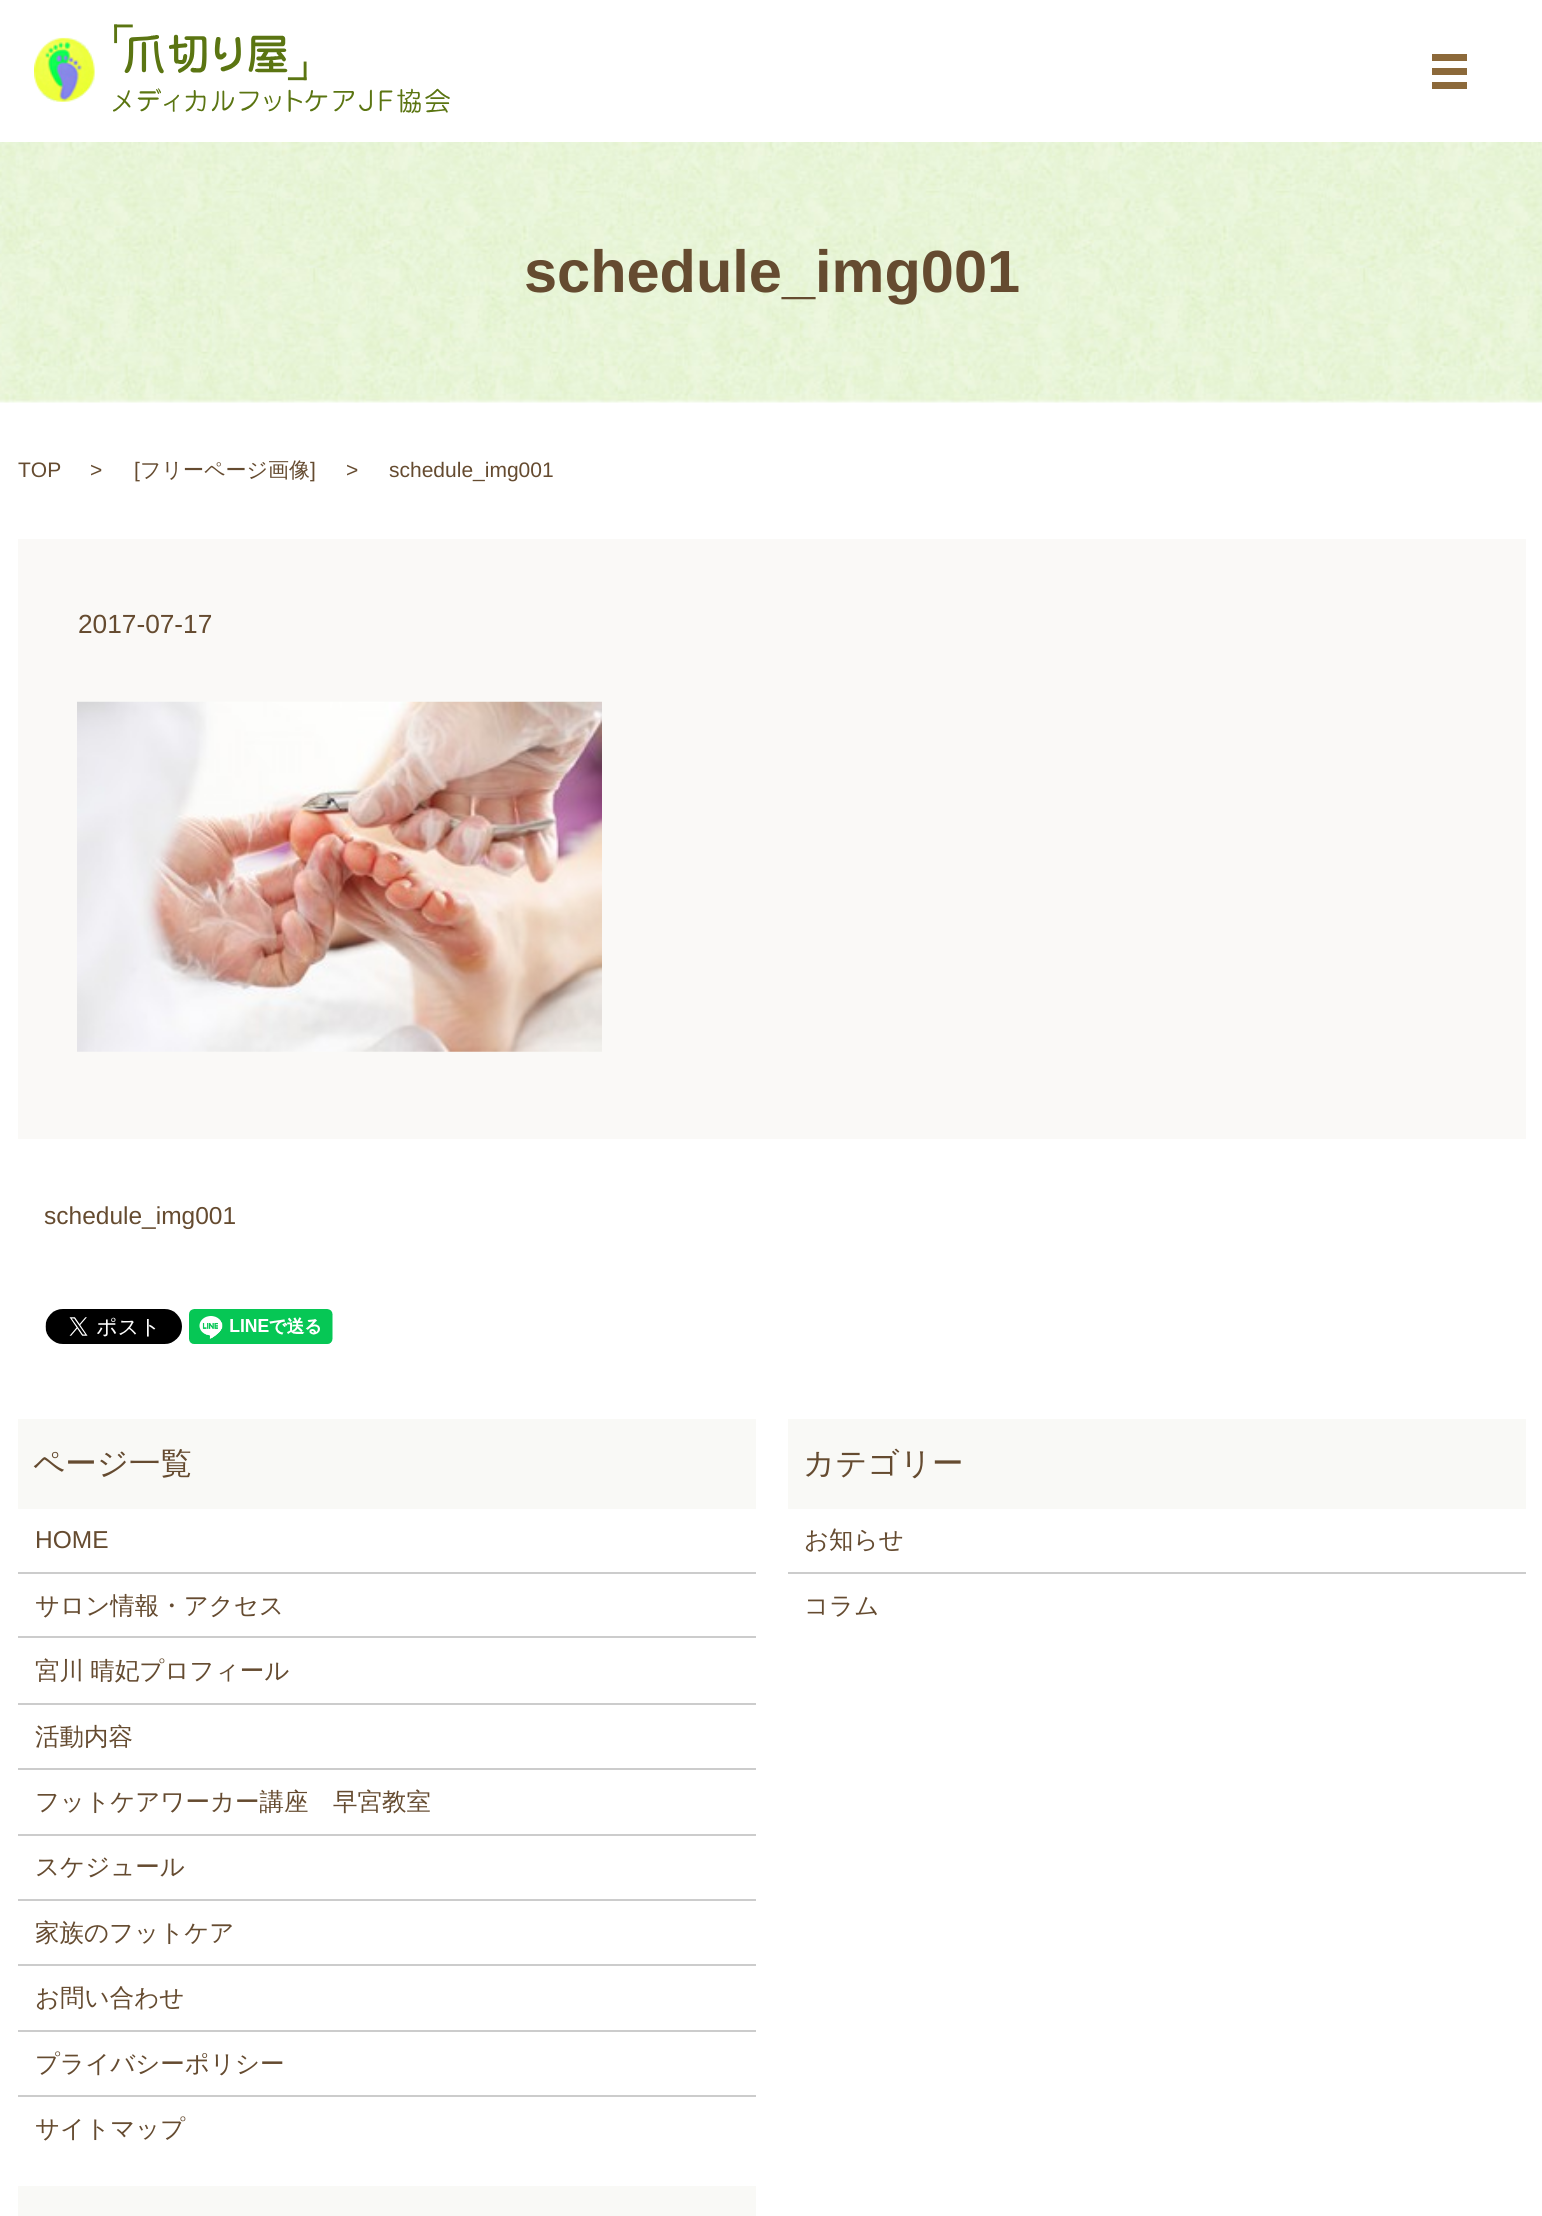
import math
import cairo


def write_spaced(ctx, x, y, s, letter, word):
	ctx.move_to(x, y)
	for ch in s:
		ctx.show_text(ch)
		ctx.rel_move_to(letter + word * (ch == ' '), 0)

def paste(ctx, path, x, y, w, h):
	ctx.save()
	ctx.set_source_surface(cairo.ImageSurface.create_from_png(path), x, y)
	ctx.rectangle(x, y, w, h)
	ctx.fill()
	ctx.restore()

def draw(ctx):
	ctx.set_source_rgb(1, 1, 1)
	ctx.paint()
	paste(ctx, 'media/1.png', 34, 24, 416, 90)
	ctx.set_source_rgb(0.549, 0.412, 0.227)
	ctx.rectangle(1432, 54, 35, 7)
	ctx.rectangle(1432, 68, 35, 7)
	ctx.rectangle(1432, 82, 35, 7)
	ctx.fill()
	paste(ctx, 'media/2.png', 0, 142, 1542, 261)
	ctx.select_font_face('Liberation Sans', cairo.FONT_SLANT_NORMAL, cairo.FONT_WEIGHT_BOLD)
	ctx.set_font_size(59.5)
	ctx.set_source_rgb(0.396, 0.294, 0.188)
	ctx.move_to(524, 292)
	ctx.show_text('schedule_img001')
	ctx.select_font_face('Liberation Sans')
	ctx.set_font_size(21)
	for x, y, s in [
		(18, 477, 'TOP'),
		(90, 477, '>'),
		(134, 477, '['),
	]:
		ctx.move_to(x, y)
		ctx.show_text(s)
	ctx.select_font_face('WenQuanYi Zen Hei Medium')
	ctx.move_to(140, 477)
	ctx.show_text('フリーページ画像')
	ctx.select_font_face('Liberation Sans')
	for x, y, s in [
		(310, 477, ']'),
		(346, 477, '>'),
		(389, 477, 'schedule_img001'),
	]:
		ctx.move_to(x, y)
		ctx.show_text(s)
	ctx.set_source_rgb(0.98, 0.973, 0.965)
	ctx.rectangle(18, 539, 1508, 600)
	ctx.fill()
	ctx.set_font_size(26.25)
	ctx.set_source_rgb(0.396, 0.294, 0.188)
	ctx.move_to(78, 633)
	ctx.show_text('2017-07-17')
	paste(ctx, 'media/3.png', 77, 701, 525, 351)
	ctx.set_font_size(24.5)
	ctx.move_to(44, 1224)
	ctx.show_text('schedule_img001')
	paste(ctx, 'media/4.png', 45, 1309, 137, 35)
	paste(ctx, 'media/5.png', 189, 1309, 144, 35)
	ctx.set_source_rgb(0.976, 0.973, 0.961)
	ctx.rectangle(18, 1419, 738, 90)
	ctx.fill()
	ctx.select_font_face('WenQuanYi Zen Hei Medium')
	ctx.set_font_size(31.5)
	ctx.set_source_rgb(0.396, 0.294, 0.188)
	ctx.move_to(33, 1474)
	ctx.show_text('ページ一覧')
	ctx.set_source_rgb(0.8, 0.8, 0.8)
	ctx.rectangle(18, 1572, 738, 2)
	ctx.fill()
	ctx.select_font_face('Liberation Sans')
	ctx.set_font_size(24.5)
	ctx.set_source_rgb(0.396, 0.294, 0.188)
	ctx.move_to(35, 1548)
	ctx.show_text('HOME')
	ctx.set_source_rgb(0.8, 0.8, 0.8)
	ctx.rectangle(18, 1636, 738, 2)
	ctx.fill()
	ctx.select_font_face('WenQuanYi Zen Hei Medium')
	ctx.set_source_rgb(0.396, 0.294, 0.188)
	ctx.move_to(35, 1614)
	ctx.show_text('サロン情報・アクセス')
	ctx.set_source_rgb(0.8, 0.8, 0.8)
	ctx.rectangle(18, 1703, 738, 2)
	ctx.fill()
	ctx.set_source_rgb(0.396, 0.294, 0.188)
	write_spaced(ctx, 35, 1679, '宮川 晴妃プロフィール', 0, -1)
	ctx.set_source_rgb(0.8, 0.8, 0.8)
	ctx.rectangle(18, 1768, 738, 2)
	ctx.fill()
	ctx.set_source_rgb(0.396, 0.294, 0.188)
	ctx.move_to(35, 1745)
	ctx.show_text('活動内容')
	ctx.set_source_rgb(0.8, 0.8, 0.8)
	ctx.rectangle(18, 1834, 738, 2)
	ctx.fill()
	ctx.set_source_rgb(0.396, 0.294, 0.188)
	ctx.move_to(35, 1810)
	ctx.show_text('フットケアワーカー講座　早宮教室')
	ctx.set_source_rgb(0.8, 0.8, 0.8)
	ctx.rectangle(18, 1899, 738, 2)
	ctx.fill()
	ctx.set_source_rgb(0.396, 0.294, 0.188)
	ctx.move_to(35, 1875)
	ctx.show_text('スケジュール')
	ctx.set_source_rgb(0.8, 0.8, 0.8)
	ctx.rectangle(18, 1964, 738, 2)
	ctx.fill()
	ctx.set_source_rgb(0.396, 0.294, 0.188)
	ctx.move_to(35, 1941)
	ctx.show_text('家族のフットケア')
	ctx.set_source_rgb(0.8, 0.8, 0.8)
	ctx.rectangle(18, 2030, 738, 2)
	ctx.fill()
	ctx.set_source_rgb(0.396, 0.294, 0.188)
	ctx.move_to(35, 2006)
	ctx.show_text('お問い合わせ')
	ctx.set_source_rgb(0.8, 0.8, 0.8)
	ctx.rectangle(18, 2095, 738, 2)
	ctx.fill()
	ctx.set_source_rgb(0.396, 0.294, 0.188)
	ctx.move_to(35, 2072)
	ctx.show_text('プライバシーポリシー')
	ctx.move_to(35, 2137)
	ctx.show_text('サイトマップ')
	ctx.set_source_rgb(0.976, 0.973, 0.961)
	ctx.rectangle(788, 1419, 738, 90)
	ctx.fill()
	ctx.set_font_size(31.5)
	ctx.set_source_rgb(0.396, 0.294, 0.188)
	ctx.move_to(803, 1474)
	ctx.show_text('カテゴリー')
	ctx.set_source_rgb(0.8, 0.8, 0.8)
	ctx.rectangle(788, 1572, 738, 2)
	ctx.fill()
	ctx.set_font_size(24.5)
	ctx.set_source_rgb(0.396, 0.294, 0.188)
	ctx.move_to(804, 1548)
	ctx.show_text('お知らせ')
	ctx.move_to(804, 1614)
	ctx.show_text('コラム')
	ctx.set_source_rgb(0.976, 0.973, 0.961)
	ctx.rectangle(18, 2186, 738, 30)
	ctx.fill()


surface = cairo.ImageSurface(cairo.FORMAT_RGB24, 1542, 2216)
ctx = cairo.Context(surface)
options = cairo.FontOptions()
options.set_hint_metrics(cairo.HINT_METRICS_OFF)
options.set_hint_style(cairo.HINT_STYLE_NONE)
ctx.set_font_options(options)
ctx.set_miter_limit(4)
draw(ctx)
surface.write_to_png('image.png')
